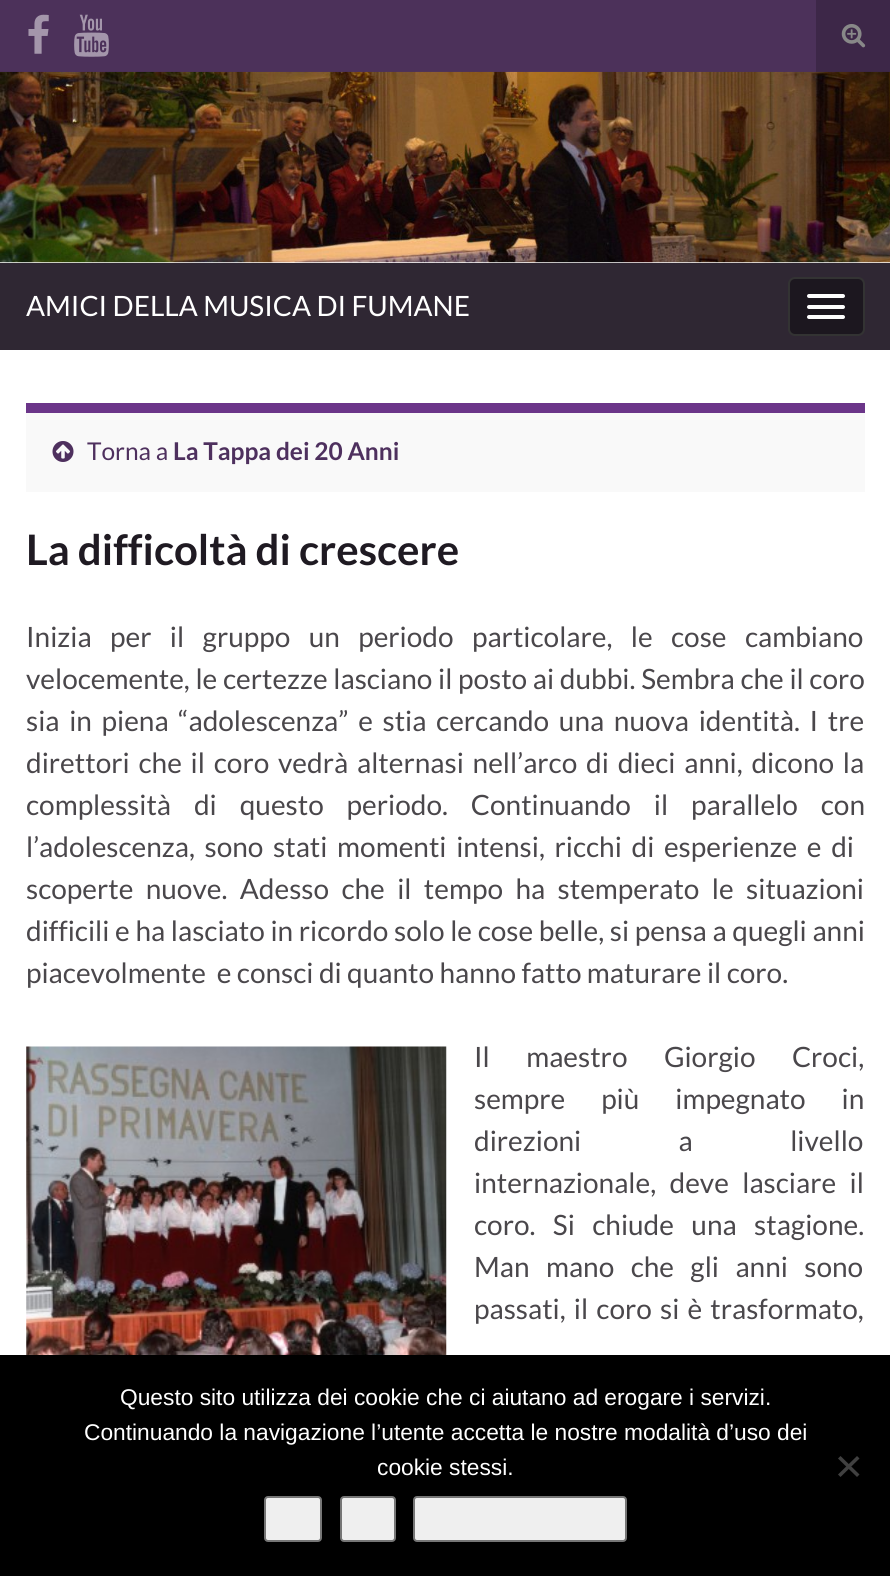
import math
import cairo


def write_spaced(ctx, x, y, s, letter, word):
	ctx.move_to(x, y)
	for ch in s:
		ctx.show_text(ch)
		ctx.rel_move_to(letter + word * (ch == ' '), 0)

def round_path(ctx, x, y, w, h, r):
	ctx.new_sub_path()
	for i, (u, v) in enumerate([(x + w - r, y + h - r), (x + r, y + h - r), (x + r, y + r), (x + w - r, y + r)]):
		ctx.arc(u, v, r, i * math.pi / 2, (i + 1) * math.pi / 2)
	ctx.close_path()

def paste(ctx, path, x, y, w, h):
	ctx.save()
	ctx.set_source_surface(cairo.ImageSurface.create_from_png(path), x, y)
	ctx.rectangle(x, y, w, h)
	ctx.fill()
	ctx.restore()

def draw(ctx):
	ctx.set_source_rgb(1, 1, 1)
	ctx.paint()
	ctx.set_source_rgb(0.298, 0.192, 0.353)
	ctx.rectangle(0, 0, 816, 72)
	ctx.fill()
	paste(ctx, 'media/1.png', 28, 14, 21, 40)
	paste(ctx, 'media/2.png', 74, 14, 35, 43)
	ctx.set_source_rgb(0.239, 0.153, 0.282)
	ctx.rectangle(816, 0, 74, 72)
	ctx.fill()
	paste(ctx, 'media/3.png', 841, 24, 25, 24)
	paste(ctx, 'media/4.png', 0, 71, 890, 192)
	ctx.set_source_rgb(0.184, 0.153, 0.2)
	ctx.rectangle(0, 263, 890, 87)
	ctx.fill()
	ctx.select_font_face('Lato')
	ctx.set_font_size(28)
	ctx.set_source_rgb(1, 1, 1)
	ctx.move_to(26, 316)
	ctx.show_text('AMICI DELLA MUSICA DI FUMANE')
	ctx.set_source_rgb(0.11, 0.09, 0.122)
	round_path(ctx, 789, 278, 75, 57, 6)
	ctx.fill_preserve()
	ctx.set_source_rgb(0.2, 0.2, 0.2)
	ctx.stroke()
	ctx.set_source_rgb(1, 1, 1)
	round_path(ctx, 807, 294, 38, 4, 2)
	ctx.fill()
	round_path(ctx, 807, 305, 38, 4, 2)
	ctx.fill()
	round_path(ctx, 807, 315, 38, 4, 2)
	ctx.fill()
	ctx.set_source_rgb(0.976, 0.976, 0.976)
	ctx.rectangle(26, 413, 839, 79)
	ctx.fill()
	ctx.set_source_rgb(0.42, 0.208, 0.537)
	ctx.rectangle(26, 403, 839, 10)
	ctx.fill()
	paste(ctx, 'media/5.png', 52, 441, 22, 21)
	ctx.set_font_size(24.5)
	ctx.set_source_rgb(0.306, 0.188, 0.369)
	ctx.move_to(87, 460)
	ctx.show_text('Torna a')
	ctx.select_font_face('Lato', cairo.FONT_SLANT_NORMAL, cairo.FONT_WEIGHT_BOLD)
	ctx.move_to(173, 460)
	ctx.show_text('La Tappa dei 20 Anni')
	ctx.set_font_size(42)
	ctx.set_source_rgb(0.122, 0.102, 0.133)
	ctx.move_to(26, 565)
	ctx.show_text('La difficoltà di crescere')
	ctx.select_font_face('Lato')
	ctx.set_font_size(28)
	ctx.set_source_rgb(0.29, 0.278, 0.294)
	write_spaced(ctx, 26, 647, 'Inizia per il gruppo un periodo particolare, le cose cambiano', 0, 13)
	write_spaced(ctx, 26, 689, 'velocemente, le certezze lasciano il posto ai dubbi. Sembra che il coro', 0, 0.25)
	write_spaced(ctx, 26, 731, 'sia in piena “adolescenza” e stia cercando una nuova identità. I tre', 0, 4.25)
	write_spaced(ctx, 26, 773, 'direttori che il coro vedrà alternasi nell’arco di dieci anni, dicono la', 0, 3.4)
	write_spaced(ctx, 26, 815, 'complessità di questo periodo. Continuando il parallelo con', 0, 17.5)
	write_spaced(ctx, 26, 857, 'l’adolescenza, sono stati momenti intensi, ricchi di esperienze e di', 0, 4.25)
	write_spaced(ctx, 26, 899, 'scoperte nuove. Adesso che il tempo ha stemperato le situazioni', 0, 7)
	write_spaced(ctx, 26, 941, 'difficili e ha lasciato in ricordo solo le cose belle, si pensa a quegli anni', 0, 0.25)
	ctx.move_to(26, 983)
	ctx.show_text('piacevolmente  e consci di quanto hanno fatto maturare il coro.')
	paste(ctx, 'media/6.png', 26, 1046, 421, 309)
	write_spaced(ctx, 474, 1067, 'Il maestro Giorgio Croci,', 0, 31)
	write_spaced(ctx, 474, 1109, 'sempre più impegnato in', 0, 30.5)
	write_spaced(ctx, 474, 1151, 'direzioni a livello', 0, 92)
	write_spaced(ctx, 474, 1193, 'internazionale, deve lasciare il', 0, 8)
	write_spaced(ctx, 474, 1235, 'coro. Si chiude una stagione.', 0, 12)
	write_spaced(ctx, 474, 1277, 'Man mano che gli anni sono', 0, 11)
	write_spaced(ctx, 474, 1319, 'passati, il coro si è trasformato,', 0, 2.75)
	ctx.set_source_rgb(0, 0, 0)
	ctx.rectangle(0, 1355, 890, 221)
	ctx.fill()
	ctx.select_font_face('Liberation Sans')
	ctx.set_font_size(22.75)
	ctx.set_source_rgb(1, 1, 1)
	for x, y, s in [
		(120, 1405, 'Questo sito utilizza dei cookie che ci aiutano ad erogare i servizi.'),
		(84, 1440, 'Continuando la navigazione l’utente accetta le nostre modalità d’uso dei'),
		(377, 1475, 'cookie stessi.'),
	]:
		ctx.move_to(x, y)
		ctx.show_text(s)
	ctx.set_source_rgb(0.251, 0.251, 0.251)
	ctx.new_path()
	ctx.move_to(857, 1456)
	ctx.line_to(859.5, 1458.5)
	ctx.line_to(840.5, 1477)
	ctx.line_to(838, 1474.5)
	ctx.close_path()
	ctx.fill()
	ctx.new_path()
	ctx.move_to(838, 1458.5)
	ctx.line_to(840.5, 1456)
	ctx.line_to(859.5, 1474.5)
	ctx.line_to(857, 1477)
	ctx.close_path()
	ctx.fill()
	ctx.set_source_rgb(0.937, 0.937, 0.937)
	round_path(ctx, 265, 1497, 56, 44, 3)
	ctx.fill_preserve()
	ctx.set_source_rgb(0.463, 0.463, 0.463)
	ctx.stroke()
	ctx.set_source_rgb(0.937, 0.937, 0.937)
	round_path(ctx, 341, 1497, 54, 44, 3)
	ctx.fill_preserve()
	ctx.set_source_rgb(0.463, 0.463, 0.463)
	ctx.stroke()
	ctx.set_source_rgb(0.937, 0.937, 0.937)
	round_path(ctx, 414, 1497, 212, 44, 3)
	ctx.fill_preserve()
	ctx.set_source_rgb(0.463, 0.463, 0.463)
	ctx.stroke()


surface = cairo.ImageSurface(cairo.FORMAT_RGB24, 890, 1576)
ctx = cairo.Context(surface)
options = cairo.FontOptions()
options.set_hint_metrics(cairo.HINT_METRICS_OFF)
options.set_hint_style(cairo.HINT_STYLE_NONE)
ctx.set_font_options(options)
ctx.set_miter_limit(4)
draw(ctx)
surface.write_to_png('image.png')
